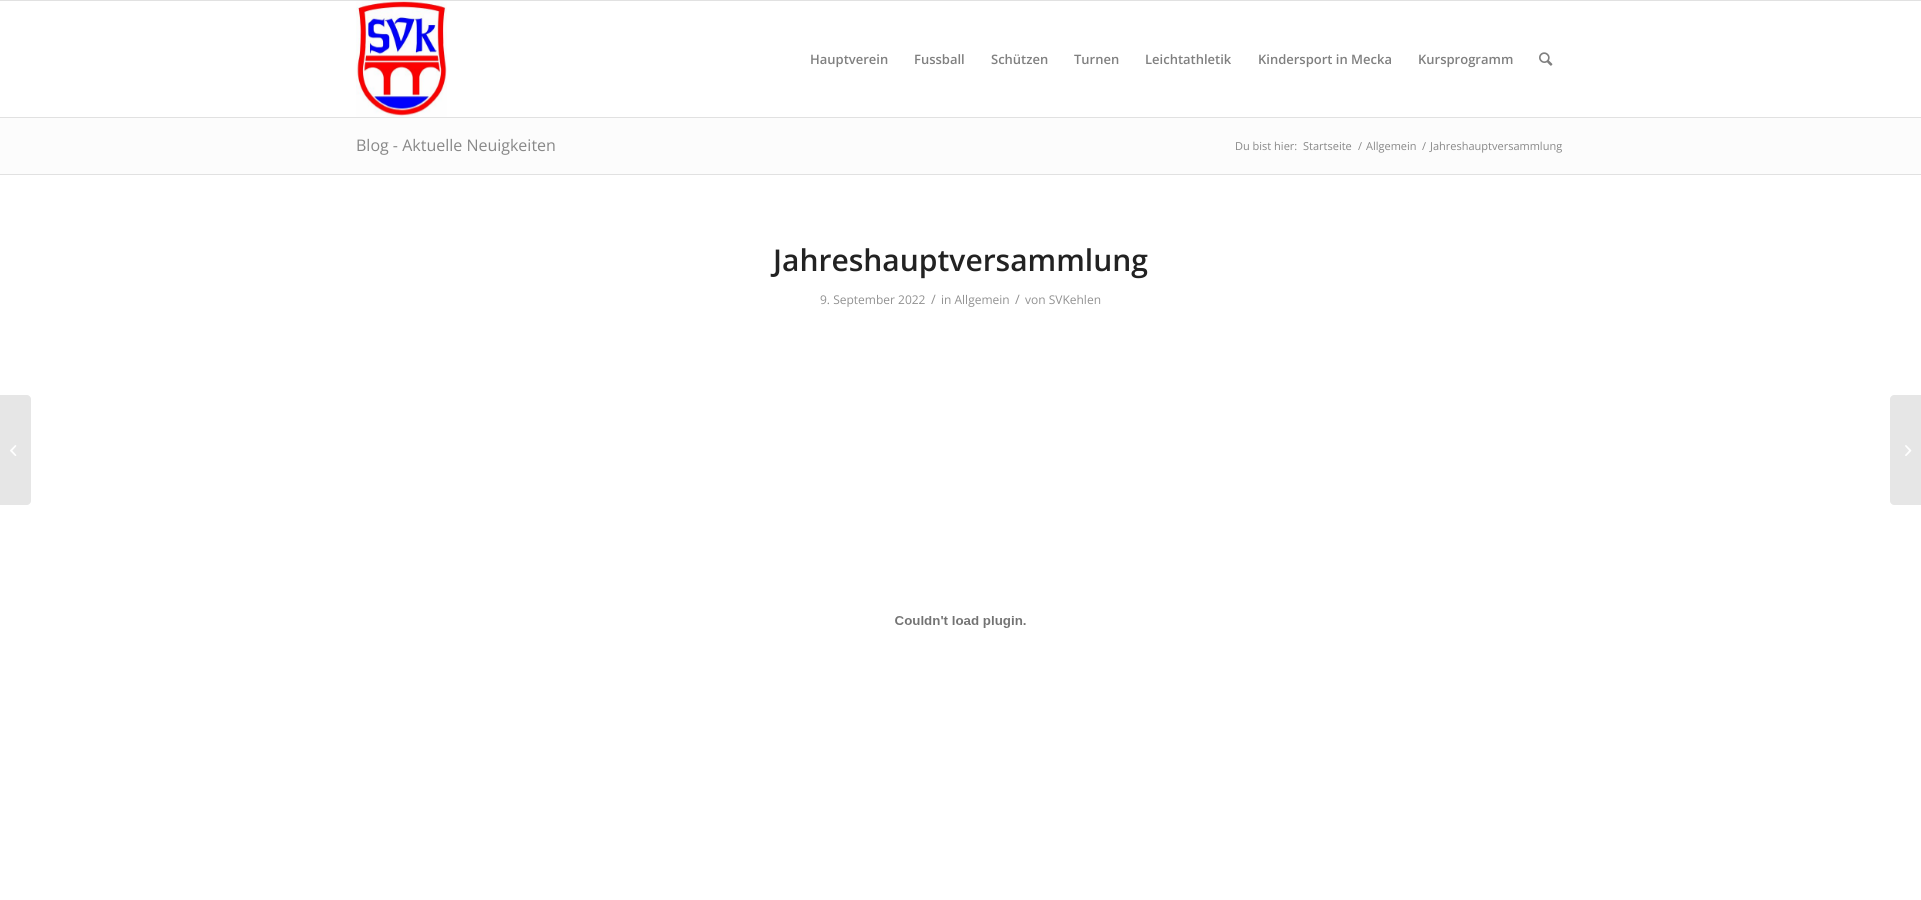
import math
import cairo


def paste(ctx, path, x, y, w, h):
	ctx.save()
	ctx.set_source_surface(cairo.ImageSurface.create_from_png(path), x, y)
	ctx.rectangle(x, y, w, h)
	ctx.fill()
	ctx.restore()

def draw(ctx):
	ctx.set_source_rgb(1, 1, 1)
	ctx.paint()
	ctx.set_source_rgb(0.882, 0.882, 0.882)
	ctx.rectangle(0, 0, 1921, 1)
	ctx.fill()
	ctx.rectangle(0, 117, 1921, 1)
	ctx.fill()
	paste(ctx, 'media/1.png', 356, 1, 91, 116)
	ctx.select_font_face('Open Sans SemiBold')
	ctx.set_font_size(13)
	ctx.set_source_rgb(0.502, 0.502, 0.502)
	for x, y, s in [
		(810, 64, 'Hauptverein'),
		(914, 64, 'Fussball'),
		(991, 64, 'Schützen'),
		(1074, 64, 'Turnen'),
		(1145, 64, 'Leichtathletik'),
		(1258, 64, 'Kindersport in Mecka'),
		(1418, 64, 'Kursprogramm'),
	]:
		ctx.move_to(x, y)
		ctx.show_text(s)
	paste(ctx, 'media/2.png', 1539, 52, 14, 14)
	ctx.set_source_rgb(0.988, 0.988, 0.988)
	ctx.rectangle(0, 118, 1921, 56)
	ctx.fill()
	ctx.select_font_face('Open Sans')
	ctx.set_font_size(16)
	ctx.set_source_rgb(0.533, 0.533, 0.533)
	ctx.move_to(356, 151)
	ctx.show_text('Blog - Aktuelle Neuigkeiten')
	ctx.set_font_size(11)
	for x, y, s in [
		(1235, 150, 'Du bist hier:'),
		(1303, 150, 'Startseite'),
		(1358, 150, '/'),
		(1366, 150, 'Allgemein'),
		(1422, 150, '/'),
		(1430, 150, 'Jahreshauptversammlung'),
	]:
		ctx.move_to(x, y)
		ctx.show_text(s)
	ctx.set_source_rgb(0.882, 0.882, 0.882)
	ctx.rectangle(0, 174, 1921, 1)
	ctx.fill()
	ctx.select_font_face('Open Sans SemiBold')
	ctx.set_font_size(30)
	ctx.set_source_rgb(0.133, 0.133, 0.133)
	ctx.move_to(773, 271)
	ctx.show_text('Jahreshauptversammlung')
	ctx.select_font_face('Open Sans')
	ctx.set_font_size(12)
	ctx.set_source_rgb(0.569, 0.569, 0.569)
	ctx.move_to(820, 304)
	ctx.show_text('9. September 2022')
	ctx.set_font_size(13)
	ctx.move_to(931, 304)
	ctx.show_text('/')
	ctx.set_font_size(12)
	ctx.move_to(941, 304)
	ctx.show_text('in Allgemein')
	ctx.set_font_size(13)
	ctx.move_to(1015, 304)
	ctx.show_text('/')
	ctx.set_font_size(12)
	ctx.move_to(1025, 304)
	ctx.show_text('von SVKehlen')
	paste(ctx, 'media/3.png', 895, 616, 131, 12)
	ctx.set_source_rgb(0.902, 0.902, 0.902)
	ctx.new_path()
	ctx.move_to(0, 395)
	ctx.line_to(27, 395)
	ctx.curve_to(29, 395, 31, 397, 31, 399)
	ctx.line_to(31, 501)
	ctx.curve_to(31, 503, 29, 505, 27, 505)
	ctx.line_to(0, 505)
	ctx.close_path()
	ctx.fill()
	paste(ctx, 'media/4.png', 10, 445, 7, 11)
	ctx.new_path()
	ctx.move_to(1894, 395)
	ctx.line_to(1921, 395)
	ctx.line_to(1921, 505)
	ctx.line_to(1894, 505)
	ctx.curve_to(1892, 505, 1890, 503, 1890, 501)
	ctx.line_to(1890, 399)
	ctx.curve_to(1890, 397, 1892, 395, 1894, 395)
	ctx.close_path()
	ctx.fill()
	paste(ctx, 'media/5.png', 1905, 445, 7, 11)


surface = cairo.ImageSurface(cairo.FORMAT_RGB24, 1921, 900)
ctx = cairo.Context(surface)
options = cairo.FontOptions()
options.set_hint_metrics(cairo.HINT_METRICS_OFF)
options.set_hint_style(cairo.HINT_STYLE_NONE)
ctx.set_font_options(options)
ctx.set_miter_limit(4)
draw(ctx)
surface.write_to_png('image.png')
